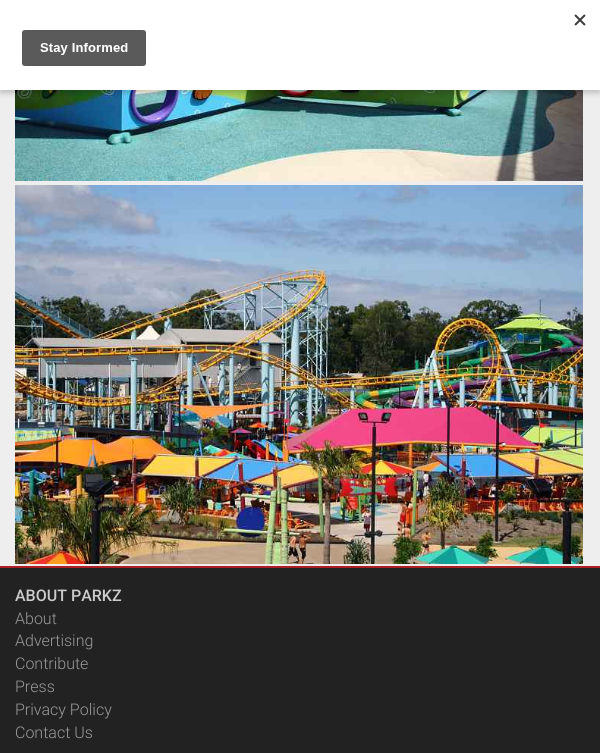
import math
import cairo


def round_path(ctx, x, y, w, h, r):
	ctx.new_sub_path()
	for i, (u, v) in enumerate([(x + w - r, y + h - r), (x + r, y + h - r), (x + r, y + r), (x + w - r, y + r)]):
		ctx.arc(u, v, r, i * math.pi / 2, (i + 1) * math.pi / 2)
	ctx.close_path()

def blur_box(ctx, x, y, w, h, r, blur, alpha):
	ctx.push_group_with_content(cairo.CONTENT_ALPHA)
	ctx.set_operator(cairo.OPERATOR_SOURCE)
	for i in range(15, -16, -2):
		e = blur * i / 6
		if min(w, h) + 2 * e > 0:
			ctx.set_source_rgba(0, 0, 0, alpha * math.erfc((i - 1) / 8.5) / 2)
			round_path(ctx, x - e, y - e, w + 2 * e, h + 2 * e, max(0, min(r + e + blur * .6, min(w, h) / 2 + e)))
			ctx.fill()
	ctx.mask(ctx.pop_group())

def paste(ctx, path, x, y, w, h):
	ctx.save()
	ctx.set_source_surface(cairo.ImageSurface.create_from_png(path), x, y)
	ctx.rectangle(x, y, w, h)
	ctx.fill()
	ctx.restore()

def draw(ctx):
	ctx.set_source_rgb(0.933, 0.933, 0.933)
	ctx.paint()
	paste(ctx, 'media/2.png', 15, 90, 568, 91)
	ctx.set_source_rgb(0, 0, 0)
	blur_box(ctx, 0, 3, 600, 90, 0, 3, 0.2)
	ctx.set_source_rgb(1, 1, 1)
	ctx.rectangle(0, 0, 600, 90)
	ctx.fill()
	paste(ctx, 'media/1.png', 22, 14, 564, 52)
	paste(ctx, 'media/3.png', 15, 185, 568, 379)
	ctx.set_source_rgb(0.133, 0.133, 0.133)
	ctx.rectangle(0, 568, 600, 185)
	ctx.fill()
	ctx.set_source_rgb(0.675, 0.118, 0.137)
	ctx.rectangle(0, 566, 600, 2)
	ctx.fill()
	ctx.select_font_face('Roboto Medium')
	ctx.set_font_size(16)
	ctx.set_source_rgb(0.8, 0.8, 0.8)
	ctx.move_to(15, 601)
	ctx.show_text('ABOUT PARKZ')
	ctx.select_font_face('Roboto Light')
	ctx.set_source_rgb(0.6, 0.6, 0.6)
	for x, y, s in [
		(15, 624, 'About'),
		(15, 646, 'Advertising'),
		(15, 669, 'Contribute'),
		(15, 692, 'Press'),
		(15, 715, 'Privacy Policy'),
		(15, 738, 'Contact Us'),
	]:
		ctx.move_to(x, y)
		ctx.show_text(s)


surface = cairo.ImageSurface(cairo.FORMAT_RGB24, 600, 753)
ctx = cairo.Context(surface)
options = cairo.FontOptions()
options.set_hint_metrics(cairo.HINT_METRICS_OFF)
options.set_hint_style(cairo.HINT_STYLE_NONE)
ctx.set_font_options(options)
ctx.set_miter_limit(4)
draw(ctx)
surface.write_to_png('image.png')
